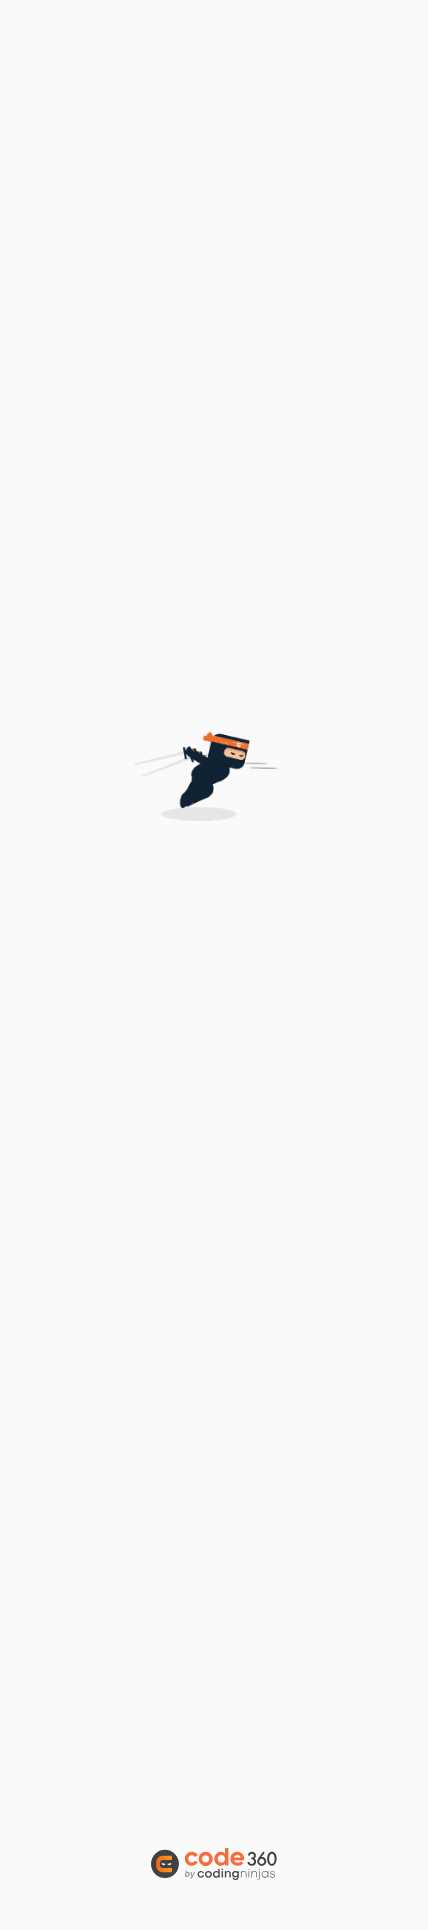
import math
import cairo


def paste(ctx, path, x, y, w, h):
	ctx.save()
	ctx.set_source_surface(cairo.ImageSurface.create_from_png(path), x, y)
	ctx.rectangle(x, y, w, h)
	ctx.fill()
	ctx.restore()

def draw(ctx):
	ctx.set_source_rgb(0.98, 0.98, 0.98)
	ctx.paint()
	paste(ctx, 'media/1.png', 134, 731, 145, 90)
	paste(ctx, 'media/2.png', 151, 1848, 126, 32)


surface = cairo.ImageSurface(cairo.FORMAT_RGB24, 428, 1930)
ctx = cairo.Context(surface)
options = cairo.FontOptions()
options.set_hint_metrics(cairo.HINT_METRICS_OFF)
options.set_hint_style(cairo.HINT_STYLE_NONE)
ctx.set_font_options(options)
ctx.set_miter_limit(4)
draw(ctx)
surface.write_to_png('image.png')
